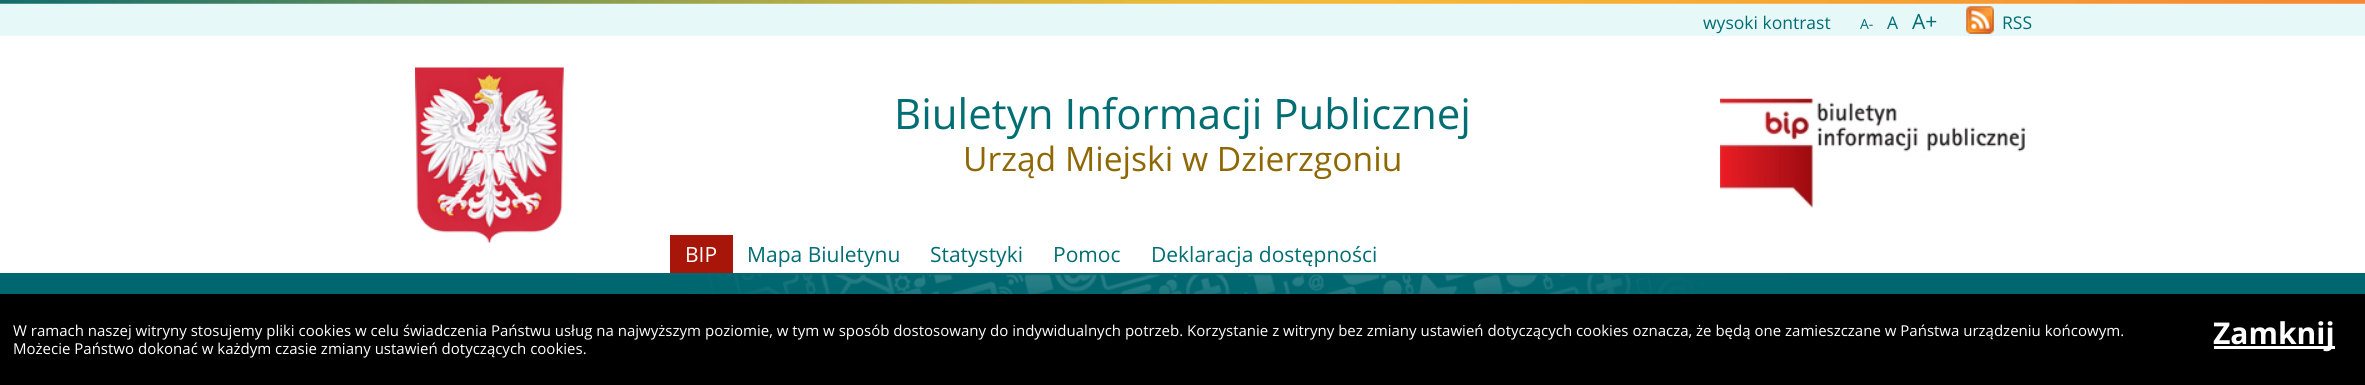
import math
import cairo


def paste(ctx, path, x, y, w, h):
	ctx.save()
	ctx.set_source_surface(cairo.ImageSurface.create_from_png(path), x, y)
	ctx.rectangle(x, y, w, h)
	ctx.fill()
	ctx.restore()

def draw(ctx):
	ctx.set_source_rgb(1, 1, 1)
	ctx.paint()
	ctx.set_source_rgb(0.906, 0.969, 0.969)
	ctx.rectangle(0, 3, 2365, 33)
	ctx.fill()
	paste(ctx, 'media/1.png', 0, 0, 2365, 4)
	ctx.select_font_face('Open Sans')
	ctx.set_font_size(17.5)
	ctx.set_source_rgb(0, 0.431, 0.451)
	ctx.move_to(1703, 29)
	ctx.show_text('wysoki kontrast')
	ctx.set_font_size(14)
	ctx.move_to(1860, 29)
	ctx.show_text('A-')
	ctx.set_font_size(17.5)
	ctx.move_to(1887, 29)
	ctx.show_text('A')
	ctx.set_font_size(21)
	ctx.move_to(1912, 29)
	ctx.show_text('A+')
	paste(ctx, 'media/2.png', 1966, 6, 28, 28)
	ctx.set_font_size(17.5)
	ctx.move_to(2002, 29)
	ctx.show_text('RSS')
	paste(ctx, 'media/3.png', 415, 67, 149, 176)
	ctx.set_font_size(42)
	ctx.move_to(894, 129)
	ctx.show_text('Biuletyn Informacji Publicznej')
	ctx.set_font_size(33.6)
	ctx.set_source_rgb(0.561, 0.408, 0.012)
	ctx.move_to(963, 171)
	ctx.show_text('Urząd Miejski w Dzierzgoniu')
	paste(ctx, 'media/4.png', 1720, 98, 305, 110)
	ctx.set_source_rgb(0.659, 0.086, 0.039)
	ctx.rectangle(670, 235, 63, 38)
	ctx.fill()
	ctx.set_font_size(21)
	ctx.set_source_rgb(1, 1, 1)
	ctx.move_to(685, 262)
	ctx.show_text('BIP')
	ctx.set_source_rgb(0, 0.431, 0.451)
	for x, y, s in [
		(747, 262, 'Mapa Biuletynu'),
		(930, 262, 'Statystyki'),
		(1053, 262, 'Pomoc'),
		(1151, 262, 'Deklaracja dostępności'),
	]:
		ctx.move_to(x, y)
		ctx.show_text(s)
	ctx.set_source_rgb(0, 0.4, 0.435)
	ctx.rectangle(0, 273, 2365, 21)
	ctx.fill()
	paste(ctx, 'media/5.png', 576, 274, 1213, 20)
	ctx.set_source_rgb(0, 0, 0)
	ctx.rectangle(0, 294, 2365, 91)
	ctx.fill()
	ctx.set_font_size(15)
	ctx.set_source_rgb(1, 1, 1)
	ctx.move_to(13, 336)
	ctx.show_text('W ramach naszej witryny stosujemy pliki cookies w celu świadczenia Państwu usług na najwyższym poziomie, w tym w sposób dostosowany do indywidualnych potrzeb. Korzystanie z witryny bez zmiany ustawień dotyczących cookies oznacza, że będą one zamieszczane w Państwa urządzeniu końcowym.')
	ctx.move_to(13, 354)
	ctx.show_text('Możecie Państwo dokonać w każdym czasie zmiany ustawień dotyczących cookies.')
	ctx.rectangle(2214, 346, 121, 3)
	ctx.fill()
	ctx.select_font_face('Open Sans', cairo.FONT_SLANT_NORMAL, cairo.FONT_WEIGHT_BOLD)
	ctx.set_font_size(30)
	ctx.move_to(2213, 344)
	ctx.show_text('Zamknij')


surface = cairo.ImageSurface(cairo.FORMAT_RGB24, 2365, 385)
ctx = cairo.Context(surface)
options = cairo.FontOptions()
options.set_hint_metrics(cairo.HINT_METRICS_OFF)
options.set_hint_style(cairo.HINT_STYLE_NONE)
ctx.set_font_options(options)
ctx.set_miter_limit(4)
draw(ctx)
surface.write_to_png('image.png')
